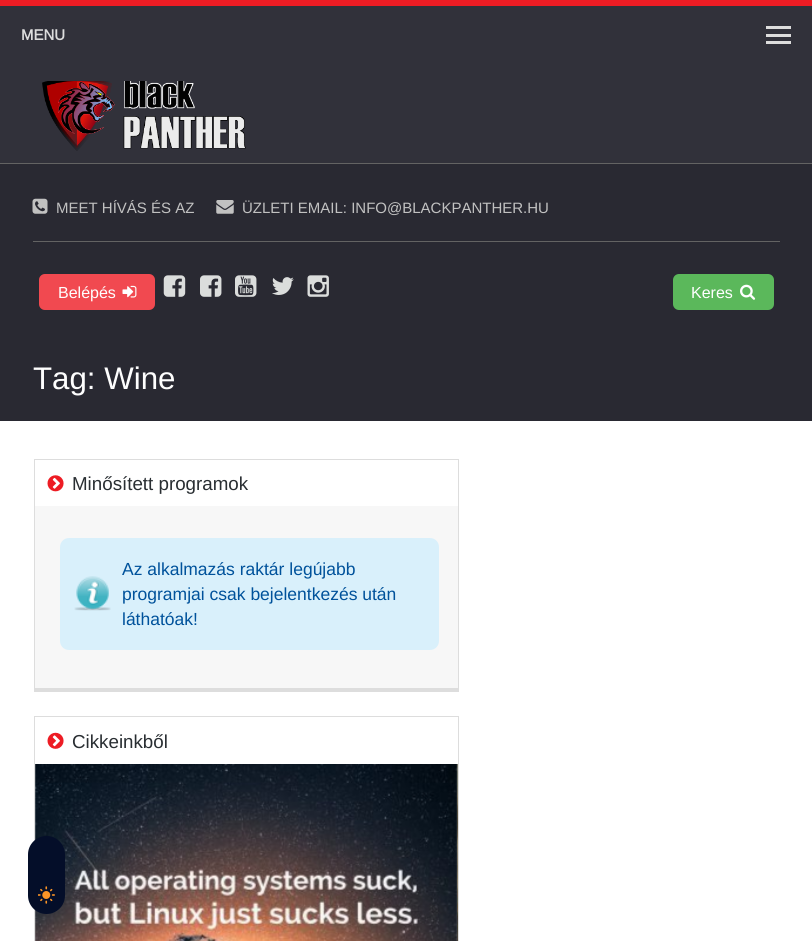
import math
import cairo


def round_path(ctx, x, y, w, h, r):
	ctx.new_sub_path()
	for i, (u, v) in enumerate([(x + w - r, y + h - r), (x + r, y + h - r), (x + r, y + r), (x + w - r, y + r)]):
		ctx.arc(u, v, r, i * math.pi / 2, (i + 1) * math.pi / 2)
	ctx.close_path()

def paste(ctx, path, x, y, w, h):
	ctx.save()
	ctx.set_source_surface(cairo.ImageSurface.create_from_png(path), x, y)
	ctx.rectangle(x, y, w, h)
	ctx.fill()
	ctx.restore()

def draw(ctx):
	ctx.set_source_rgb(0.929, 0.11, 0.141)
	ctx.paint()
	ctx.set_source_rgb(0.192, 0.192, 0.227)
	ctx.rectangle(0, 6, 812, 157)
	ctx.fill()
	ctx.set_source_rgb(0.388, 0.388, 0.388)
	ctx.rectangle(0, 163, 812, 1)
	ctx.fill()
	ctx.set_source_rgb(0.867, 0.867, 0.867)
	ctx.rectangle(766, 26, 25, 3)
	ctx.fill()
	ctx.select_font_face('Arimo', cairo.FONT_SLANT_NORMAL, cairo.FONT_WEIGHT_BOLD)
	ctx.set_font_size(15)
	ctx.move_to(21, 40)
	ctx.show_text('MENU')
	ctx.rectangle(766, 34, 25, 3)
	ctx.fill()
	ctx.rectangle(766, 41, 25, 3)
	ctx.fill()
	paste(ctx, 'media/1.png', 42, 81, 204, 70)
	ctx.set_source_rgb(0.161, 0.161, 0.196)
	ctx.rectangle(0, 164, 812, 257)
	ctx.fill()
	ctx.set_source_rgb(0.388, 0.388, 0.388)
	ctx.rectangle(33, 241, 747, 1)
	ctx.fill()
	paste(ctx, 'media/2.png', 32, 198, 16, 16)
	ctx.select_font_face('Arimo')
	ctx.set_source_rgb(0.757, 0.757, 0.757)
	ctx.move_to(56, 213)
	ctx.show_text('MEET HÍVÁS ÉS AZ')
	paste(ctx, 'media/3.png', 216, 200, 18, 14)
	ctx.move_to(242, 213)
	ctx.show_text('ÜZLETI EMAIL: INFO@BLACKPANTHER.HU')
	ctx.set_source_rgb(0.929, 0.11, 0.141)
	round_path(ctx, 39, 274, 116, 36, 6)
	ctx.fill()
	ctx.set_source_rgba(1, 1, 1, 0.2)
	round_path(ctx, 39, 274, 116, 36, 6)
	ctx.fill()
	ctx.set_font_size(16)
	ctx.set_source_rgb(0.996, 0.996, 0.996)
	ctx.move_to(58, 298)
	ctx.show_text('Belépés')
	paste(ctx, 'media/4.png', 122, 285, 15, 13)
	paste(ctx, 'media/5.png', 163, 275, 23, 22)
	paste(ctx, 'media/6.png', 200, 275, 22, 22)
	paste(ctx, 'media/7.png', 235, 275, 22, 22)
	paste(ctx, 'media/8.png', 272, 277, 22, 18)
	paste(ctx, 'media/9.png', 307, 275, 22, 22)
	ctx.set_source_rgb(0.357, 0.722, 0.357)
	round_path(ctx, 673, 274, 101, 36, 6)
	ctx.fill()
	ctx.set_source_rgb(0.996, 0.996, 0.996)
	ctx.move_to(691, 298)
	ctx.show_text('Keres')
	paste(ctx, 'media/10.png', 740, 284, 16, 16)
	ctx.set_font_size(31.25)
	ctx.move_to(33, 389)
	ctx.show_text('Tag: Wine')
	ctx.set_source_rgb(1, 1, 1)
	ctx.rectangle(0, 421, 812, 520)
	ctx.fill()
	ctx.set_source_rgb(0.965, 0.965, 0.965)
	ctx.rectangle(35, 506, 423, 182)
	ctx.fill()
	ctx.set_source_rgb(0.867, 0.867, 0.867)
	ctx.rectangle(34, 459, 425, 1)
	ctx.rectangle(458, 459, 1, 232)
	ctx.rectangle(34, 688, 425, 4)
	ctx.rectangle(34, 459, 1, 232)
	ctx.fill()
	paste(ctx, 'media/11.png', 47, 475, 17, 17)
	ctx.set_font_size(18.75)
	ctx.set_source_rgb(0.161, 0.18, 0.196)
	ctx.move_to(72, 490)
	ctx.show_text('Minősített programok')
	ctx.set_source_rgb(0.851, 0.941, 0.984)
	round_path(ctx, 60, 538, 379, 112, 9)
	ctx.fill()
	paste(ctx, 'media/12.png', 74, 576, 37, 35)
	ctx.set_font_size(17.5)
	ctx.set_source_rgb(0, 0.322, 0.608)
	for x, y, s in [
		(122, 575, 'Az alkalmazás raktár legújabb'),
		(122, 600, 'programjai csak bejelentkezés után'),
		(122, 625, 'láthatóak!'),
	]:
		ctx.move_to(x, y)
		ctx.show_text(s)
	ctx.set_source_rgb(0.867, 0.867, 0.867)
	ctx.rectangle(34, 716, 425, 1)
	ctx.rectangle(458, 716, 1, 225)
	ctx.rectangle(34, 716, 1, 225)
	ctx.fill()
	paste(ctx, 'media/13.png', 47, 732, 17, 17)
	ctx.set_font_size(18.75)
	ctx.set_source_rgb(0.161, 0.18, 0.196)
	ctx.move_to(72, 748)
	ctx.show_text('Cikkeinkből')
	paste(ctx, 'media/14.png', 35, 764, 423, 177)
	paste(ctx, 'media/15.png', 457, 764, 1, 177)
	ctx.set_source_rgb(0.016, 0.055, 0.161)
	round_path(ctx, 28, 836, 37, 78, 18.5)
	ctx.fill()
	paste(ctx, 'media/16.png', 38, 886, 17, 18)


surface = cairo.ImageSurface(cairo.FORMAT_RGB24, 812, 941)
ctx = cairo.Context(surface)
options = cairo.FontOptions()
options.set_hint_metrics(cairo.HINT_METRICS_OFF)
options.set_hint_style(cairo.HINT_STYLE_NONE)
ctx.set_font_options(options)
ctx.set_miter_limit(4)
draw(ctx)
surface.write_to_png('image.png')
